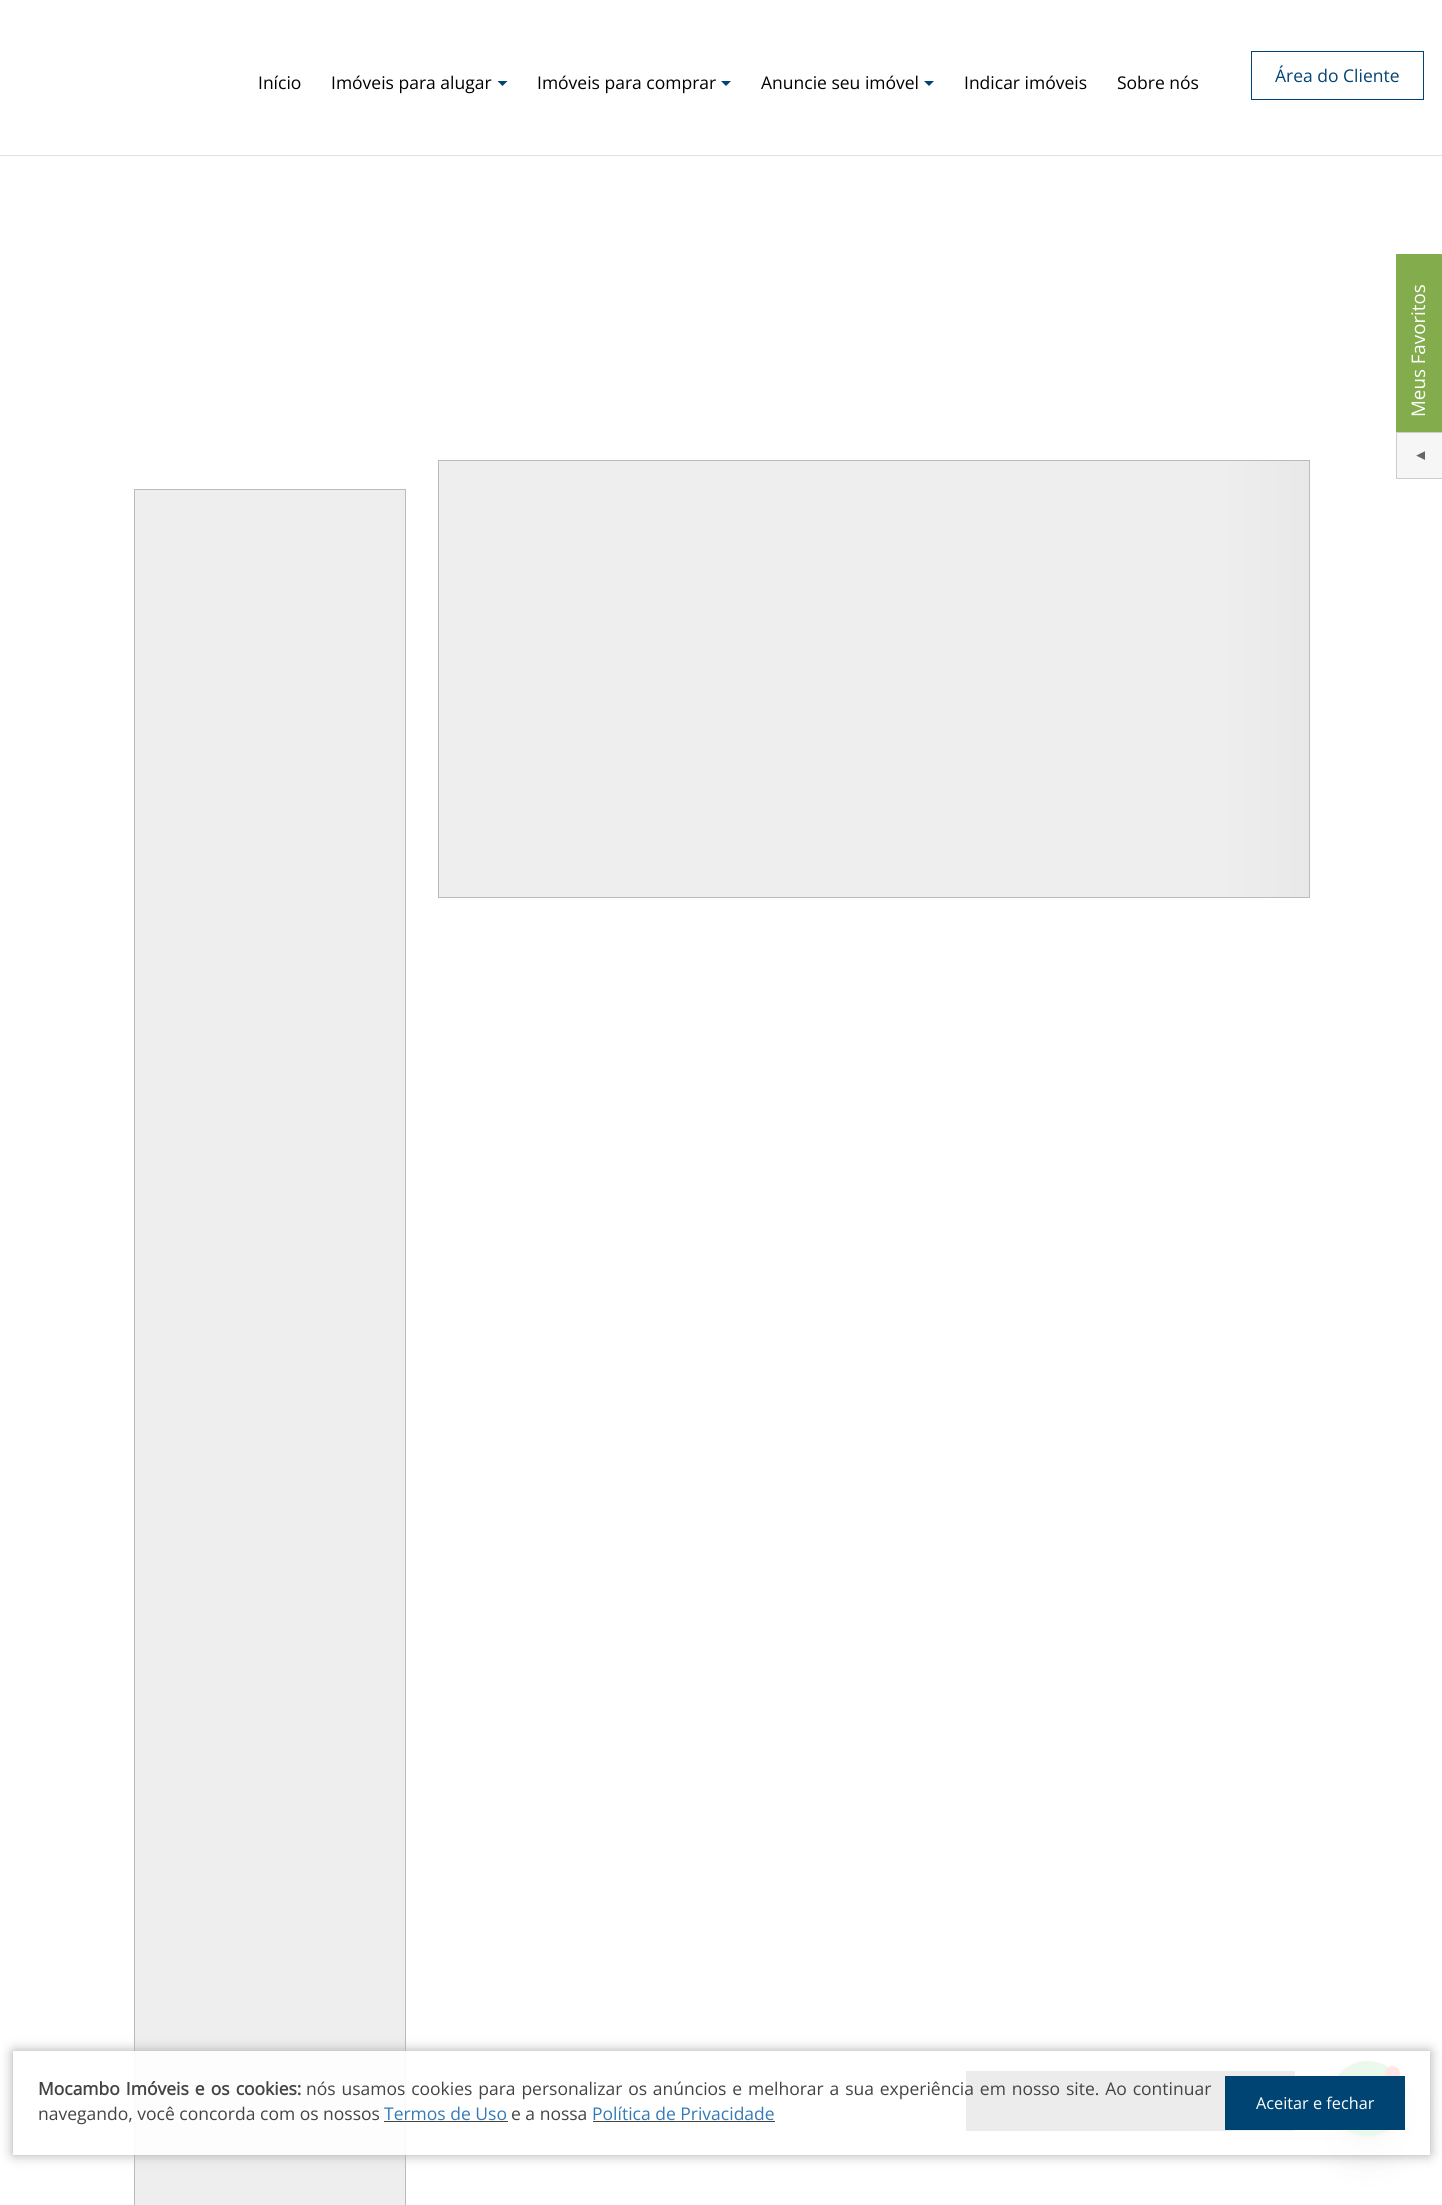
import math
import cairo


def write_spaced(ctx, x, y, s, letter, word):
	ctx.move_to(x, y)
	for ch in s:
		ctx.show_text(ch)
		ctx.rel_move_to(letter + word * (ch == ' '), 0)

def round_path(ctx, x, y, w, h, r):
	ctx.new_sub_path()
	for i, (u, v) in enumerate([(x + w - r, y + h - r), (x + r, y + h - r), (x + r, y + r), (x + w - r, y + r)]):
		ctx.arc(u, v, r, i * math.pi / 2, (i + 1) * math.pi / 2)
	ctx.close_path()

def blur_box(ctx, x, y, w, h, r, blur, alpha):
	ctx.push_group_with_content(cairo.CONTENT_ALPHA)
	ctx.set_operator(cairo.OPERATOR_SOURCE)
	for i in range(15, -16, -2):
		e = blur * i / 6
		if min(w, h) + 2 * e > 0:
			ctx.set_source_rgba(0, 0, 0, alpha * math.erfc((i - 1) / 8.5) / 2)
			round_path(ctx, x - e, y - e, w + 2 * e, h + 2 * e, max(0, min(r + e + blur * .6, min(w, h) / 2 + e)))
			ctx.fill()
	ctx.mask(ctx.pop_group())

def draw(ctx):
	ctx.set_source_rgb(1, 1, 1)
	ctx.paint()
	ctx.set_source_rgb(0.878, 0.878, 0.878)
	ctx.rectangle(0, 155, 1442, 1)
	ctx.fill()
	ctx.select_font_face('Open Sans')
	ctx.set_font_size(17.5)
	ctx.set_source_rgb(0, 0, 0)
	ctx.move_to(258, 89)
	ctx.show_text('Início')
	ctx.move_to(331, 89)
	ctx.show_text('Imóveis para alugar')
	ctx.set_source_rgb(0, 0.267, 0.455)
	ctx.new_path()
	ctx.move_to(497.5, 81)
	ctx.line_to(507.5, 81)
	ctx.line_to(502.5, 86)
	ctx.close_path()
	ctx.fill()
	ctx.set_source_rgb(0, 0, 0)
	ctx.move_to(537, 89)
	ctx.show_text('Imóveis para comprar')
	ctx.set_source_rgb(0, 0.267, 0.455)
	ctx.new_path()
	ctx.move_to(721, 81)
	ctx.line_to(731, 81)
	ctx.line_to(726, 86)
	ctx.close_path()
	ctx.fill()
	ctx.set_source_rgb(0, 0, 0)
	ctx.move_to(761, 89)
	ctx.show_text('Anuncie seu imóvel')
	ctx.set_source_rgb(0, 0.267, 0.455)
	ctx.new_path()
	ctx.move_to(924, 81)
	ctx.line_to(934, 81)
	ctx.line_to(929, 86)
	ctx.close_path()
	ctx.fill()
	ctx.set_source_rgb(0, 0, 0)
	ctx.move_to(964, 89)
	ctx.show_text('Indicar imóveis')
	ctx.move_to(1117, 89)
	ctx.show_text('Sobre nós')
	ctx.set_source_rgb(0, 0.267, 0.455)
	ctx.move_to(1275, 82)
	ctx.show_text('Área do Cliente')
	ctx.rectangle(1251, 51, 173, 1)
	ctx.rectangle(1251, 99, 93, 1)
	ctx.rectangle(1251, 51, 1, 49)
	ctx.rectangle(1423, 51, 1, 49)
	ctx.rectangle(1344, 99, 80, 1)
	ctx.fill()
	ctx.set_source_rgb(0.514, 0.678, 0.298)
	ctx.rectangle(1396, 254, 46, 178)
	ctx.fill()
	ctx.set_font_size(18.75)
	ctx.set_source_rgb(1, 1, 1)
	ctx.save()
	ctx.translate(1425, 417)
	ctx.rotate(-90 * math.pi / 180)
	ctx.move_to(0, 0)
	ctx.show_text('Meus Favoritos')
	ctx.restore()
	ctx.set_source_rgb(0.961, 0.961, 0.961)
	ctx.rectangle(1397, 433, 45, 45)
	ctx.fill()
	ctx.set_source_rgb(0.8, 0.8, 0.8)
	ctx.rectangle(1396, 432, 1, 47)
	ctx.rectangle(1396, 432, 46, 1)
	ctx.rectangle(1396, 478, 46, 1)
	ctx.fill()
	ctx.select_font_face('Liberation Sans')
	ctx.set_font_size(15)
	ctx.set_source_rgb(0.4, 0.4, 0.4)
	ctx.save()
	ctx.translate(1425, 463)
	ctx.rotate(-90 * math.pi / 180)
	ctx.move_to(0, 0)
	ctx.show_text('▲')
	ctx.restore()
	ctx.set_source_rgb(0, 0, 0)
	blur_box(ctx, 1330, 2081, 75, 75, 37.5, 20, 0.07)
	blur_box(ctx, 1330, 2071, 75, 75, 37.5, 10, 0.07)
	blur_box(ctx, 1330, 2066, 75, 75, 37.5, 5, 0.07)
	blur_box(ctx, 1330, 2064, 75, 75, 37.5, 2.5, 0.07)
	blur_box(ctx, 1330, 2063, 75, 75, 37.5, 1, 0.07)
	ctx.set_source_rgb(0.188, 0.749, 0.224)
	ctx.arc(1367.5, 2098.5, 37.5, 0, 2 * math.pi)
	ctx.fill()
	ctx.set_source_rgb(0.224, 0.231, 0.224)
	ctx.rectangle(966, 2071, 329, 60)
	ctx.fill()
	ctx.set_source_rgb(1, 0, 0)
	ctx.arc(1392.5, 2073.5, 7.5, 0, 2 * math.pi)
	ctx.fill()
	gradient = cairo.LinearGradient(-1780, 555, 720, 555)
	gradient.add_color_stop_rgba(0.08, 0.933, 0.933, 0.933, 1)
	gradient.add_color_stop_rgba(0.18, 0.867, 0.867, 0.867, 1)
	gradient.add_color_stop_rgba(0.33, 0.933, 0.933, 0.933, 1)
	ctx.set_source(gradient)
	ctx.rectangle(135, 490, 270, 1715)
	ctx.fill()
	ctx.rectangle(134.5, 489.5, 271, 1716)
	ctx.set_source_rgb(0.733, 0.733, 0.733)
	ctx.set_line_width(1)
	ctx.stroke()
	gradient = cairo.LinearGradient(-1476, 526, 1024, 526)
	gradient.add_color_stop_rgba(0.08, 0.933, 0.933, 0.933, 1)
	gradient.add_color_stop_rgba(0.18, 0.867, 0.867, 0.867, 1)
	gradient.add_color_stop_rgba(0.33, 0.933, 0.933, 0.933, 1)
	ctx.set_source(gradient)
	ctx.rectangle(439, 461, 585, 436)
	ctx.fill()
	gradient = cairo.LinearGradient(1024, 526, 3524, 526)
	gradient.add_color_stop_rgba(0.08, 0.933, 0.933, 0.933, 1)
	gradient.add_color_stop_rgba(0.18, 0.867, 0.867, 0.867, 1)
	gradient.add_color_stop_rgba(0.33, 0.933, 0.933, 0.933, 1)
	ctx.set_source(gradient)
	ctx.rectangle(1024, 461, 285, 436)
	ctx.fill()
	ctx.rectangle(438.5, 460.5, 871, 437)
	ctx.set_source_rgb(0.733, 0.733, 0.733)
	ctx.stroke()
	ctx.save()
	ctx.set_fill_rule(cairo.FILL_RULE_EVEN_ODD)
	ctx.new_path()
	ctx.move_to(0, 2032)
	ctx.line_to(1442, 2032)
	ctx.line_to(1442, 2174)
	ctx.line_to(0, 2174)
	ctx.close_path()
	ctx.move_to(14, 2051)
	ctx.line_to(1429, 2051)
	ctx.curve_to(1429.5, 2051, 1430, 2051.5, 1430, 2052)
	ctx.line_to(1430, 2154)
	ctx.curve_to(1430, 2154.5, 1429.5, 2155, 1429, 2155)
	ctx.line_to(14, 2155)
	ctx.curve_to(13.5, 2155, 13, 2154.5, 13, 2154)
	ctx.line_to(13, 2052)
	ctx.curve_to(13, 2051.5, 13.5, 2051, 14, 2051)
	ctx.close_path()
	ctx.clip()
	ctx.set_source_rgb(0.667, 0.667, 0.667)
	blur_box(ctx, 13, 2051, 1417, 104, 1, 6, 1)
	ctx.restore()
	ctx.set_source_rgba(1, 1, 1, 0.9)
	round_path(ctx, 13, 2051, 1417, 104, 1)
	ctx.fill()
	ctx.select_font_face('Open Sans', cairo.FONT_SLANT_NORMAL, cairo.FONT_WEIGHT_BOLD)
	ctx.set_font_size(17.5)
	ctx.set_source_rgb(0.267, 0.267, 0.267)
	write_spaced(ctx, 38, 2095, 'Mocambo Imóveis e os cookies:', 0, 1.5)
	ctx.select_font_face('Open Sans')
	write_spaced(ctx, 306, 2095, 'nós usamos cookies para personalizar os anúncios e melhorar a sua experiência em nosso site. Ao continuar', 0, 1.3)
	ctx.move_to(38, 2120)
	ctx.show_text('navegando, você concorda com os nossos')
	ctx.set_source_rgb(0.2, 0.478, 0.718)
	ctx.move_to(384, 2120)
	ctx.show_text('Termos de Uso')
	ctx.set_source_rgb(0.267, 0.267, 0.267)
	ctx.rectangle(384, 2121, 124, 1)
	ctx.fill()
	ctx.move_to(511, 2120)
	ctx.show_text('e a nossa')
	ctx.set_source_rgb(0.2, 0.478, 0.718)
	ctx.move_to(592, 2120)
	ctx.show_text('Política de Privacidade')
	ctx.set_source_rgb(0.267, 0.267, 0.267)
	ctx.rectangle(593, 2121, 182, 1)
	ctx.fill()
	ctx.set_source_rgb(0, 0.267, 0.455)
	ctx.rectangle(1225, 2076, 180, 54)
	ctx.fill()
	ctx.set_font_size(16.25)
	ctx.set_source_rgb(1, 1, 1)
	ctx.move_to(1256, 2109)
	ctx.show_text('Aceitar e fechar')


surface = cairo.ImageSurface(cairo.FORMAT_RGB24, 1442, 2205)
ctx = cairo.Context(surface)
options = cairo.FontOptions()
options.set_hint_metrics(cairo.HINT_METRICS_OFF)
options.set_hint_style(cairo.HINT_STYLE_NONE)
ctx.set_font_options(options)
ctx.set_miter_limit(4)
draw(ctx)
surface.write_to_png('image.png')
